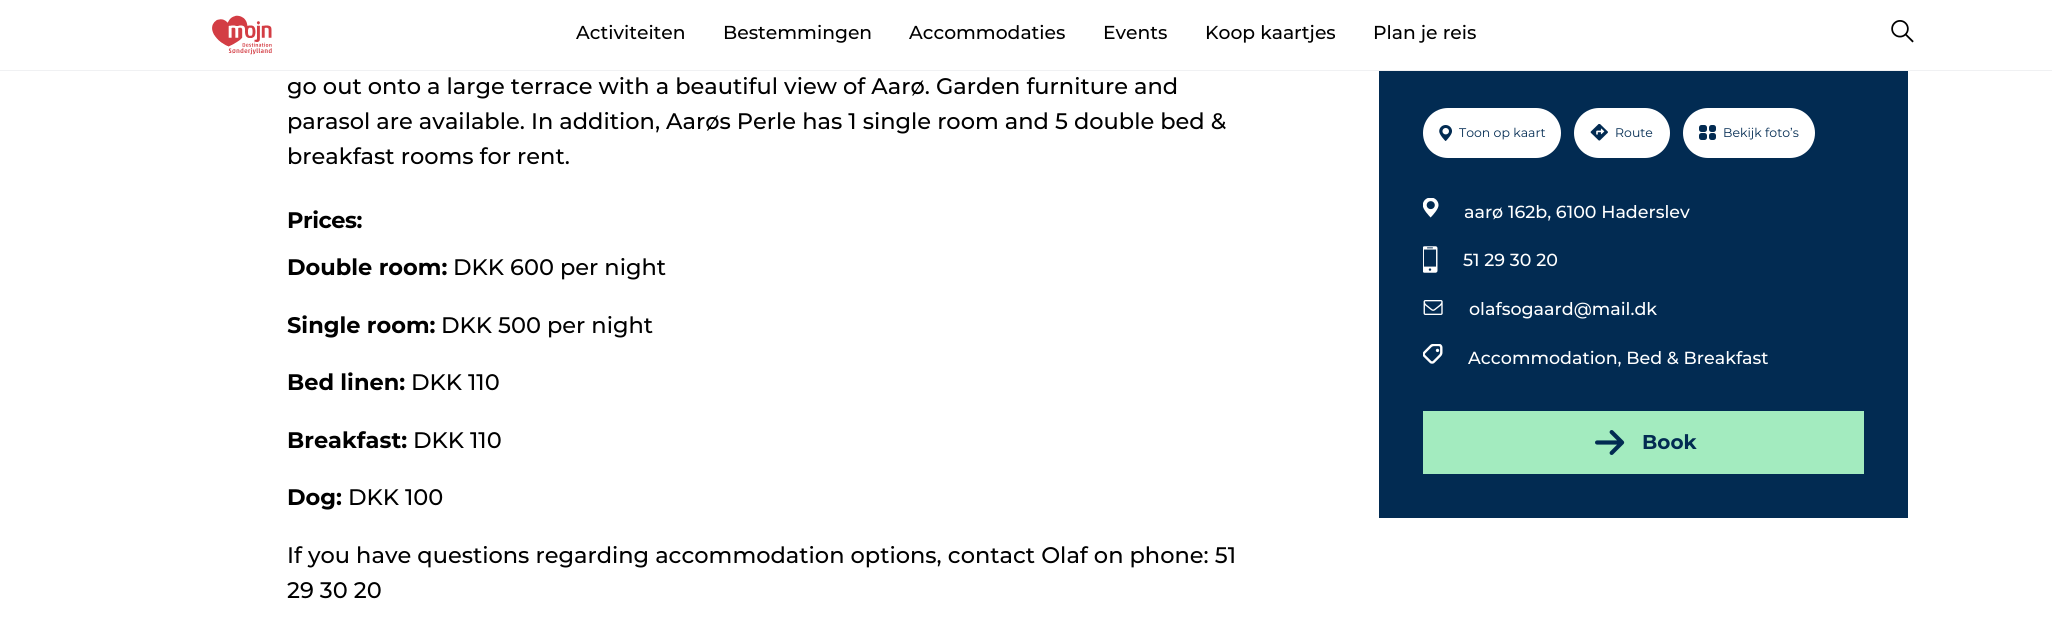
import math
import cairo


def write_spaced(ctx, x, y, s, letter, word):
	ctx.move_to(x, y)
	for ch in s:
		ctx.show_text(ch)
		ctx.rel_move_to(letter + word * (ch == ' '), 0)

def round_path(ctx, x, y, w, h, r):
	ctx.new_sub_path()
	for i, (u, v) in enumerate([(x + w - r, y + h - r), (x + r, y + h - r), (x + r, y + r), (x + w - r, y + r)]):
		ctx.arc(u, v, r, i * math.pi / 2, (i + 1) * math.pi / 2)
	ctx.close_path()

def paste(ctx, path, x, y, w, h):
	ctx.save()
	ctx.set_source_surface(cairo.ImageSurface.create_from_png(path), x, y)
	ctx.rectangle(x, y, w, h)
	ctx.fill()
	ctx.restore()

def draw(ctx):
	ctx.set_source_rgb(1, 1, 1)
	ctx.paint()
	ctx.set_source_rgb(0.941, 0.945, 0.953)
	ctx.rectangle(0, 70, 2052, 1)
	ctx.fill()
	paste(ctx, 'media/1.png', 212, 15, 60, 40)
	ctx.select_font_face('Montserrat Medium')
	ctx.set_font_size(18.75)
	ctx.set_source_rgb(0, 0, 0)
	for x, y, s in [
		(576, 39, 'Activiteiten'),
		(723, 39, 'Bestemmingen'),
		(909, 39, 'Accommodaties'),
		(1103, 39, 'Events'),
		(1205, 39, 'Koop kaartjes'),
		(1373, 39, 'Plan je reis'),
	]:
		ctx.move_to(x, y)
		ctx.show_text(s)
	paste(ctx, 'media/2.png', 1891, 20, 23, 23)
	ctx.set_font_size(22.5)
	for x, y, s in [
		(287, 94, 'go out onto a large terrace with a beautiful view of Aarø. Garden furniture and'),
		(287, 129, 'parasol are available. In addition, Aarøs Perle has 1 single room and 5 double bed &'),
		(287, 164, 'breakfast rooms for rent.'),
	]:
		ctx.move_to(x, y)
		ctx.show_text(s)
	ctx.select_font_face('Montserrat', cairo.FONT_SLANT_NORMAL, cairo.FONT_WEIGHT_BOLD)
	write_spaced(ctx, 287, 228, 'Prices:', -0.5, 0)
	ctx.move_to(287, 275)
	ctx.show_text('Double room:')
	ctx.select_font_face('Montserrat Medium')
	ctx.move_to(453, 275)
	ctx.show_text('DKK 600 per night')
	ctx.select_font_face('Montserrat', cairo.FONT_SLANT_NORMAL, cairo.FONT_WEIGHT_BOLD)
	ctx.move_to(287, 333)
	ctx.show_text('Single room:')
	ctx.select_font_face('Montserrat Medium')
	ctx.move_to(441, 333)
	ctx.show_text('DKK 500 per night')
	ctx.select_font_face('Montserrat', cairo.FONT_SLANT_NORMAL, cairo.FONT_WEIGHT_BOLD)
	ctx.move_to(287, 390)
	ctx.show_text('Bed linen:')
	ctx.select_font_face('Montserrat Medium')
	ctx.move_to(411, 390)
	ctx.show_text('DKK 110')
	ctx.select_font_face('Montserrat', cairo.FONT_SLANT_NORMAL, cairo.FONT_WEIGHT_BOLD)
	ctx.move_to(287, 448)
	ctx.show_text('Breakfast:')
	ctx.select_font_face('Montserrat Medium')
	ctx.move_to(413, 448)
	ctx.show_text('DKK 110')
	ctx.select_font_face('Montserrat', cairo.FONT_SLANT_NORMAL, cairo.FONT_WEIGHT_BOLD)
	ctx.move_to(287, 505)
	ctx.show_text('Dog:')
	ctx.select_font_face('Montserrat Medium')
	for x, y, s in [
		(348, 505, 'DKK 100'),
		(287, 563, 'If you have questions regarding accommodation options, contact Olaf on phone: 51'),
		(287, 598, '29 30 20'),
	]:
		ctx.move_to(x, y)
		ctx.show_text(s)
	ctx.set_source_rgb(0.008, 0.169, 0.322)
	ctx.rectangle(1379, 71, 529, 447)
	ctx.fill()
	ctx.set_source_rgb(1, 1, 1)
	round_path(ctx, 1423, 108, 138, 50, 25)
	ctx.fill()
	paste(ctx, 'media/3.png', 1439, 125, 13, 16)
	ctx.select_font_face('Montserrat')
	ctx.set_font_size(12.5)
	ctx.set_source_rgb(0.008, 0.169, 0.322)
	ctx.move_to(1459, 137)
	ctx.show_text('Toon op kaart')
	ctx.set_source_rgb(1, 1, 1)
	round_path(ctx, 1574, 108, 96, 50, 25)
	ctx.fill()
	paste(ctx, 'media/4.png', 1590, 124, 18, 17)
	ctx.set_source_rgb(0.008, 0.169, 0.322)
	ctx.move_to(1615, 137)
	ctx.show_text('Route')
	ctx.set_source_rgb(1, 1, 1)
	round_path(ctx, 1683, 108, 132, 50, 25)
	ctx.fill()
	paste(ctx, 'media/5.png', 1699, 125, 17, 15)
	ctx.set_source_rgb(0.008, 0.169, 0.322)
	ctx.move_to(1723, 137)
	ctx.show_text('Bekijk foto’s')
	paste(ctx, 'media/6.png', 1423, 198, 16, 20)
	ctx.select_font_face('Montserrat Medium')
	ctx.set_font_size(17.5)
	ctx.set_source_rgb(1, 1, 1)
	ctx.move_to(1464, 218)
	ctx.show_text('aarø 162b, 6100 Haderslev')
	paste(ctx, 'media/7.png', 1423, 246, 15, 27)
	ctx.move_to(1463, 266)
	ctx.show_text('51 29 30 20')
	paste(ctx, 'media/8.png', 1423, 300, 20, 15)
	ctx.move_to(1469, 315)
	ctx.show_text('olafsogaard@mail.dk')
	paste(ctx, 'media/9.png', 1423, 344, 20, 20)
	ctx.move_to(1468, 364)
	ctx.show_text('Accommodation, Bed & Breakfast')
	ctx.set_source_rgb(0.639, 0.918, 0.749)
	ctx.rectangle(1423, 411, 441, 63)
	ctx.fill()
	paste(ctx, 'media/10.png', 1595, 430, 30, 25)
	ctx.select_font_face('Montserrat', cairo.FONT_SLANT_NORMAL, cairo.FONT_WEIGHT_BOLD)
	ctx.set_font_size(20)
	ctx.set_source_rgb(0.008, 0.169, 0.322)
	ctx.move_to(1642, 449)
	ctx.show_text('Book')


surface = cairo.ImageSurface(cairo.FORMAT_RGB24, 2052, 623)
ctx = cairo.Context(surface)
options = cairo.FontOptions()
options.set_hint_metrics(cairo.HINT_METRICS_OFF)
options.set_hint_style(cairo.HINT_STYLE_NONE)
ctx.set_font_options(options)
ctx.set_miter_limit(4)
draw(ctx)
surface.write_to_png('image.png')
